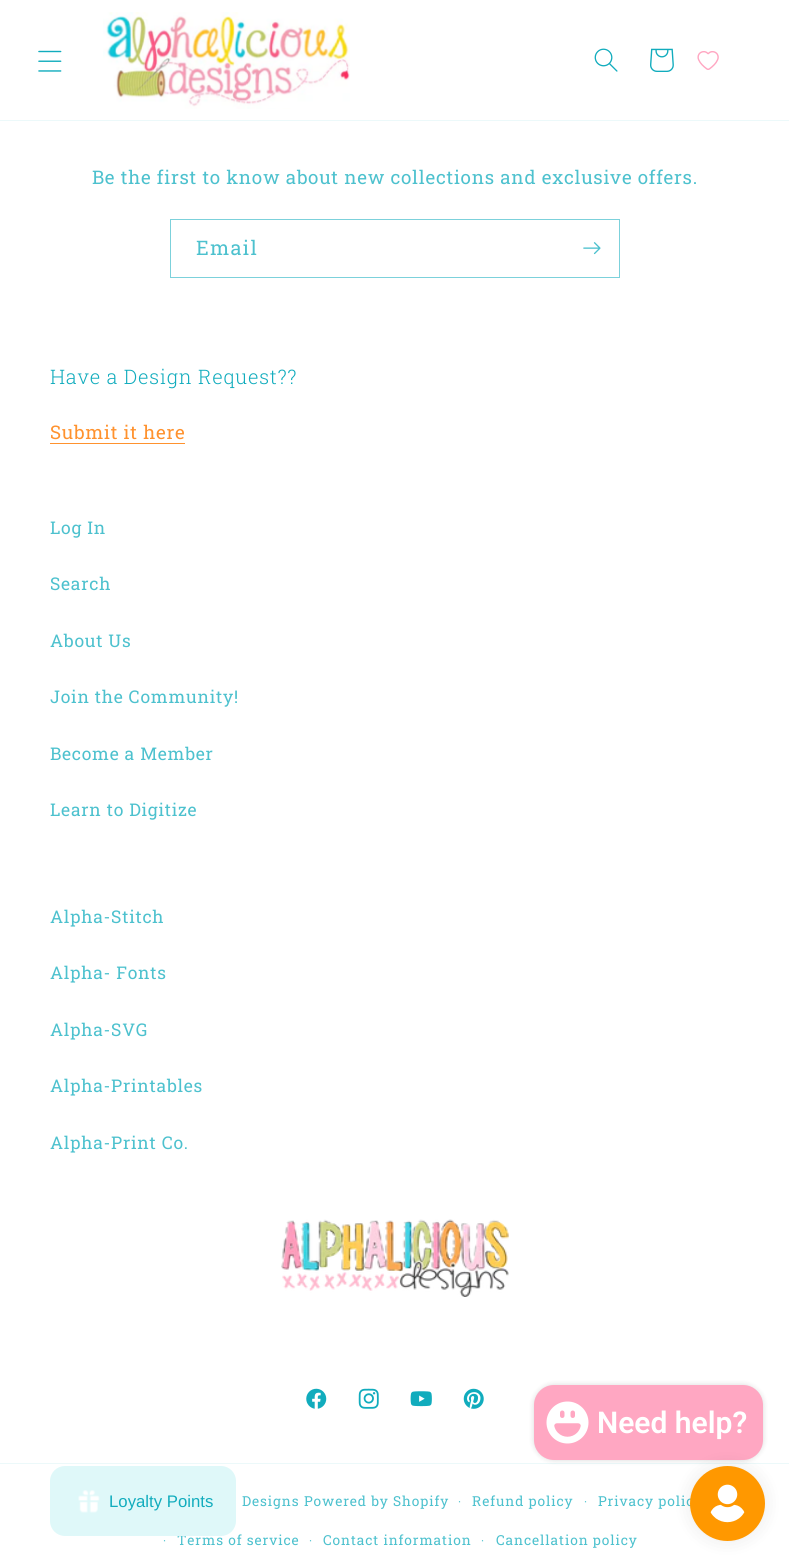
import math
import cairo


def write_spaced(ctx, x, y, s, letter, word):
	ctx.move_to(x, y)
	for ch in s:
		ctx.show_text(ch)
		ctx.rel_move_to(letter + word * (ch == ' '), 0)

def round_path(ctx, x, y, w, h, r):
	ctx.new_sub_path()
	for i, (u, v) in enumerate([(x + w - r, y + h - r), (x + r, y + h - r), (x + r, y + r), (x + w - r, y + r)]):
		ctx.arc(u, v, r, i * math.pi / 2, (i + 1) * math.pi / 2)
	ctx.close_path()

def blur_box(ctx, x, y, w, h, r, blur, alpha):
	ctx.push_group_with_content(cairo.CONTENT_ALPHA)
	ctx.set_operator(cairo.OPERATOR_SOURCE)
	for i in range(15, -16, -2):
		e = blur * i / 6
		if min(w, h) + 2 * e > 0:
			ctx.set_source_rgba(0, 0, 0, alpha * math.erfc((i - 1) / 8.5) / 2)
			round_path(ctx, x - e, y - e, w + 2 * e, h + 2 * e, max(0, min(r + e + blur * .6, min(w, h) / 2 + e)))
			ctx.fill()
	ctx.mask(ctx.pop_group())

def paste(ctx, path, x, y, w, h):
	ctx.save()
	ctx.set_source_surface(cairo.ImageSurface.create_from_png(path), x, y)
	ctx.rectangle(x, y, w, h)
	ctx.fill()
	ctx.restore()

def draw(ctx):
	ctx.set_source_rgb(1, 1, 1)
	ctx.paint()
	ctx.set_source_rgb(0.925, 0.973, 0.98)
	ctx.rectangle(0, 120, 789, 1)
	ctx.fill()
	paste(ctx, 'media/1.png', 38, 50, 24, 22)
	paste(ctx, 'media/2.png', 103, 12, 247, 97)
	paste(ctx, 'media/3.png', 594, 48, 24, 24)
	paste(ctx, 'media/4.png', 650, 48, 24, 24)
	paste(ctx, 'media/5.png', 697, 51, 22, 19)
	ctx.select_font_face('Roboto Slab')
	ctx.set_font_size(18.75)
	ctx.set_source_rgb(0.302, 0.757, 0.808)
	write_spaced(ctx, 92, 184, 'Be the first to know about new collections and exclusive offers.', 0.75, 0)
	ctx.rectangle(170.5, 219.5, 449, 58)
	ctx.set_source_rgb(0.486, 0.82, 0.859)
	ctx.set_line_width(1)
	ctx.stroke()
	ctx.set_font_size(20)
	ctx.set_source_rgb(0.302, 0.757, 0.808)
	write_spaced(ctx, 196, 255, 'Email', 1.25, 0)
	paste(ctx, 'media/6.png', 583, 242, 18, 13)
	ctx.select_font_face('Roboto Slab Light')
	ctx.set_source_rgb(0.067, 0.675, 0.741)
	write_spaced(ctx, 50, 384, 'Have a Design Request??', 0.75, 0)
	ctx.select_font_face('Roboto Slab')
	ctx.set_font_size(18.75)
	ctx.set_source_rgb(1, 0.573, 0.18)
	write_spaced(ctx, 50, 439, 'Submit it here', 0.75, 0)
	ctx.rectangle(50, 443, 135, 1)
	ctx.fill()
	ctx.set_font_size(17.5)
	ctx.set_source_rgb(0.302, 0.757, 0.808)
	for x, y, s in [
		(50, 534, 'Log In'),
		(50, 590, 'Search'),
		(50, 647, 'About Us'),
		(50, 703, 'Join the Community!'),
		(50, 760, 'Become a Member'),
		(50, 816, 'Learn to Digitize'),
		(50, 923, 'Alpha-Stitch'),
		(50, 979, 'Alpha- Fonts'),
		(50, 1036, 'Alpha-SVG'),
		(50, 1092, 'Alpha-Printables'),
		(50, 1149, 'Alpha-Print Co.'),
	]:
		write_spaced(ctx, x, y, s, 0.75, 0)
	paste(ctx, 'media/7.png', 281, 1219, 228, 78)
	paste(ctx, 'media/8.png', 306, 1388, 21, 21)
	paste(ctx, 'media/9.png', 358, 1388, 21, 21)
	paste(ctx, 'media/10.png', 410, 1391, 22, 16)
	paste(ctx, 'media/11.png', 463, 1388, 21, 21)
	ctx.set_source_rgb(0.925, 0.973, 0.98)
	ctx.rectangle(0, 1463, 789, 1)
	ctx.fill()
	ctx.set_font_size(12)
	ctx.set_source_rgb(0.302, 0.757, 0.808)
	write_spaced(ctx, 458, 1506, '·', 0.9, 0)
	ctx.set_font_size(13.75)
	write_spaced(ctx, 472, 1506, 'Refund policy', 0.9, 0)
	ctx.set_font_size(12)
	write_spaced(ctx, 584, 1506, '·', 0.9, 0)
	ctx.set_font_size(13.75)
	write_spaced(ctx, 598, 1506, 'Privacy polic', 0.9, 0)
	ctx.set_font_size(12)
	write_spaced(ctx, 163, 1545, '·', 0.9, 0)
	ctx.set_font_size(13.75)
	write_spaced(ctx, 177, 1545, 'Terms of service', 0.9, 0)
	ctx.set_font_size(12)
	write_spaced(ctx, 309, 1545, '·', 0.9, 0)
	ctx.set_font_size(13.75)
	write_spaced(ctx, 323, 1545, 'Contact information', 0.9, 0)
	ctx.set_font_size(12)
	write_spaced(ctx, 481, 1545, '·', 0.9, 0)
	ctx.set_font_size(13.75)
	for x, y, s in [
		(496, 1545, 'Cancellation policy'),
		(242, 1506, 'Designs'),
		(304, 1506, 'Powered by Shopify'),
	]:
		write_spaced(ctx, x, y, s, 0.9, 0)
	ctx.set_source_rgb(0, 0, 0)
	blur_box(ctx, 534, 1385, 229, 75, 20, 3, 0.15)
	ctx.set_source_rgb(1, 0.655, 0.761)
	round_path(ctx, 534, 1385, 229, 75, 20)
	ctx.fill()
	paste(ctx, 'media/12.png', 546, 1401, 43, 43)
	ctx.select_font_face('Roboto SemiBold')
	ctx.set_font_size(30)
	ctx.set_source_rgb(1, 1, 1)
	ctx.move_to(597, 1433)
	ctx.show_text('Need help?')
	ctx.set_source_rgb(0.875, 0.969, 0.976)
	round_path(ctx, 50, 1466, 186, 70, 15)
	ctx.fill()
	paste(ctx, 'media/13.png', 78, 1490, 22, 23)
	ctx.select_font_face('Liberation Sans')
	ctx.set_font_size(16.75)
	ctx.set_source_rgb(0.067, 0.675, 0.741)
	ctx.move_to(109, 1507)
	ctx.show_text('Loyalty Points')
	ctx.set_source_rgb(0, 0, 0)
	blur_box(ctx, 690, 1466, 75, 75, 37.5, 9.5, 0.08)
	ctx.set_source_rgb(1, 0.596, 0)
	ctx.arc(727.5, 1503.5, 37.5, 0, 2 * math.pi)
	ctx.fill()
	paste(ctx, 'media/14.png', 710, 1484, 35, 39)


surface = cairo.ImageSurface(cairo.FORMAT_RGB24, 789, 1566)
ctx = cairo.Context(surface)
options = cairo.FontOptions()
options.set_hint_metrics(cairo.HINT_METRICS_OFF)
options.set_hint_style(cairo.HINT_STYLE_NONE)
ctx.set_font_options(options)
ctx.set_miter_limit(4)
draw(ctx)
surface.write_to_png('image.png')
